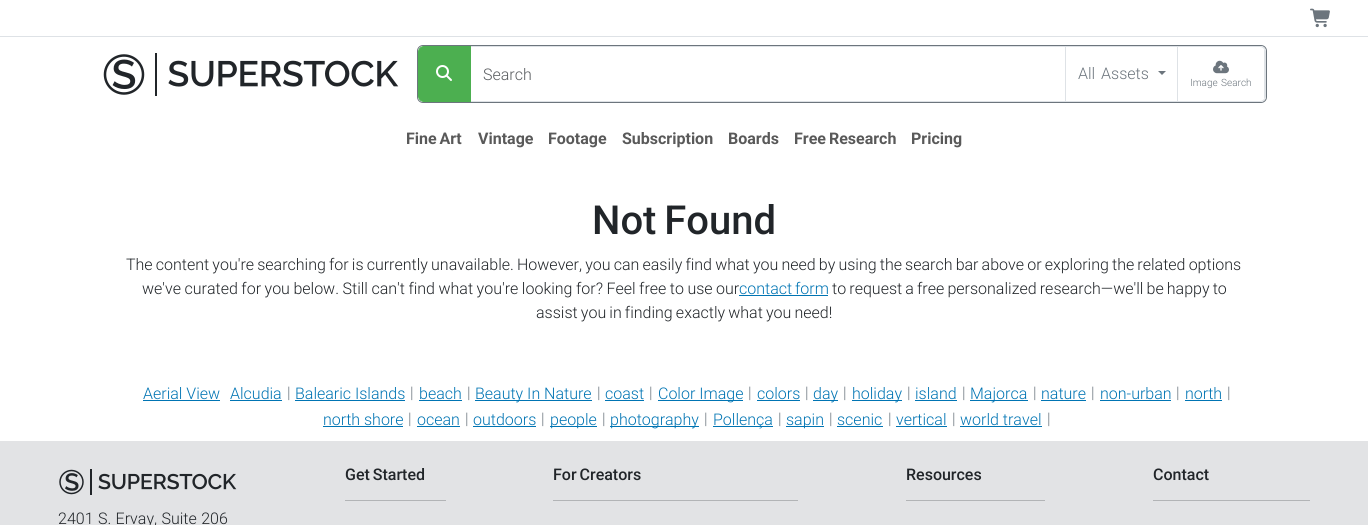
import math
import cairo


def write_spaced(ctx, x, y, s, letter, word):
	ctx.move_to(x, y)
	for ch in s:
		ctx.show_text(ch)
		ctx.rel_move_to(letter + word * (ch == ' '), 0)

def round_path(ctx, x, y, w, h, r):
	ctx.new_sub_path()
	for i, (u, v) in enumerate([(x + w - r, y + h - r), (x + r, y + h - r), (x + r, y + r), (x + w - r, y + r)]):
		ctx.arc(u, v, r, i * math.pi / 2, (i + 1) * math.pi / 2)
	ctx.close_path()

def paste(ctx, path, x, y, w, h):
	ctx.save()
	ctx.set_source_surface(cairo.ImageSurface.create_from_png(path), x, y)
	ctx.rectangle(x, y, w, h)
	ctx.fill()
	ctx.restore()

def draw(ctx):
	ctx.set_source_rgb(1, 1, 1)
	ctx.paint()
	ctx.set_source_rgb(0.871, 0.886, 0.902)
	ctx.rectangle(0, 36, 1368, 1)
	ctx.fill()
	paste(ctx, 'media/1.png', 1310, 8, 20, 20)
	paste(ctx, 'media/2.png', 103, 53, 296, 43)
	round_path(ctx, 417.5, 45.5, 849, 57, 5.5)
	ctx.set_source_rgb(0.424, 0.459, 0.49)
	ctx.set_line_width(1)
	ctx.stroke()
	ctx.rectangle(470.5, 46.5, 596, 55)
	ctx.set_source_rgb(0.871, 0.886, 0.902)
	ctx.stroke()
	ctx.set_source_rgb(0.298, 0.686, 0.314)
	ctx.new_path()
	ctx.move_to(424, 46.5)
	ctx.line_to(470.5, 46.5)
	ctx.line_to(470.5, 101.5)
	ctx.line_to(424, 101.5)
	ctx.curve_to(421, 101.5, 418.5, 99, 418.5, 96)
	ctx.line_to(418.5, 52)
	ctx.curve_to(418.5, 49, 421, 46.5, 424, 46.5)
	ctx.close_path()
	ctx.fill_preserve()
	ctx.stroke()
	paste(ctx, 'media/3.png', 436, 65, 16, 16)
	ctx.select_font_face('Roboto Light')
	ctx.set_font_size(16)
	ctx.set_source_rgb(0.349, 0.361, 0.373)
	ctx.move_to(483, 80)
	ctx.show_text('Search')
	ctx.set_source_rgb(1, 1, 1)
	ctx.new_path()
	ctx.move_to(1065.5, 46.5)
	ctx.line_to(1260, 46.5)
	ctx.curve_to(1263, 46.5, 1265.5, 49, 1265.5, 52)
	ctx.line_to(1265.5, 96)
	ctx.curve_to(1265.5, 99, 1263, 101.5, 1260, 101.5)
	ctx.line_to(1065.5, 101.5)
	ctx.close_path()
	ctx.fill_preserve()
	ctx.set_source_rgb(0.871, 0.886, 0.902)
	ctx.stroke()
	ctx.set_source_rgb(0.424, 0.459, 0.49)
	write_spaced(ctx, 1078, 79, 'All Assets', 0, 2)
	ctx.new_path()
	ctx.move_to(1158, 71)
	ctx.line_to(1166, 71)
	ctx.line_to(1162, 75)
	ctx.close_path()
	ctx.fill()
	ctx.set_source_rgb(0.871, 0.886, 0.902)
	ctx.rectangle(1264, 50, 1, 48)
	ctx.fill()
	ctx.rectangle(1177, 47, 1, 54)
	ctx.fill()
	paste(ctx, 'media/4.png', 1213, 60, 16, 14)
	ctx.set_font_size(10)
	ctx.set_source_rgb(0.424, 0.459, 0.49)
	write_spaced(ctx, 1190, 86, 'Image Search', 0, 1)
	ctx.select_font_face('Roboto', cairo.FONT_SLANT_NORMAL, cairo.FONT_WEIGHT_BOLD)
	ctx.set_font_size(16)
	ctx.set_source_rgb(0.349, 0.349, 0.349)
	write_spaced(ctx, 406, 144, 'Fine Art', 0, -1)
	for x, y, s in [
		(478, 144, 'Vintage'),
		(548, 144, 'Footage'),
		(622, 144, 'Subscription'),
		(728, 144, 'Boards'),
	]:
		ctx.move_to(x, y)
		ctx.show_text(s)
	write_spaced(ctx, 794, 144, 'Free Research', 0, -1)
	ctx.move_to(911, 144)
	ctx.show_text('Pricing')
	ctx.select_font_face('Roboto Medium')
	ctx.set_font_size(40)
	ctx.set_source_rgb(0.129, 0.145, 0.161)
	write_spaced(ctx, 592, 234, 'Not Found', 0, -2)
	ctx.select_font_face('Roboto Light')
	ctx.set_font_size(16)
	write_spaced(ctx, 126, 270, 'The content you\'re searching for is currently unavailable. However, you can easily find what you need by using the search bar above or exploring the related options', 0, -0.75)
	write_spaced(ctx, 142, 294, 'we\'ve curated for you below. Still can\'t find what you\'re looking for? Feel free to use our', 0, -0.4)
	ctx.set_source_rgb(0, 0.455, 0.702)
	write_spaced(ctx, 739, 294, 'contact form', 0, -1)
	ctx.rectangle(739, 295, 89, 1)
	ctx.fill()
	ctx.set_source_rgb(0.129, 0.145, 0.161)
	write_spaced(ctx, 832, 294, 'to request a free personalized research—we\'ll be happy to', 0, -0.75)
	write_spaced(ctx, 536, 318, 'assist you in finding exactly what you need!', 0, -0.75)
	ctx.set_source_rgb(0, 0.455, 0.702)
	ctx.move_to(143, 399)
	ctx.show_text('Aerial View')
	ctx.rectangle(143, 400, 77, 1)
	ctx.fill()
	ctx.move_to(230, 399)
	ctx.show_text('Alcudia')
	ctx.rectangle(230, 400, 52, 1)
	ctx.fill()
	ctx.set_source_rgb(0.424, 0.459, 0.49)
	ctx.move_to(287, 398)
	ctx.show_text('|')
	ctx.set_source_rgb(0, 0.455, 0.702)
	ctx.move_to(295, 399)
	ctx.show_text('Balearic Islands')
	ctx.rectangle(295, 400, 110, 1)
	ctx.fill()
	ctx.set_source_rgb(0.424, 0.459, 0.49)
	ctx.move_to(410, 398)
	ctx.show_text('|')
	ctx.set_source_rgb(0, 0.455, 0.702)
	ctx.move_to(419, 399)
	ctx.show_text('beach')
	ctx.rectangle(419, 400, 43, 1)
	ctx.fill()
	ctx.set_source_rgb(0.424, 0.459, 0.49)
	ctx.move_to(467, 398)
	ctx.show_text('|')
	ctx.set_source_rgb(0, 0.455, 0.702)
	ctx.rectangle(475, 400, 117, 1)
	ctx.fill()
	ctx.move_to(475, 399)
	ctx.show_text('Beauty In Nature')
	ctx.set_source_rgb(0.424, 0.459, 0.49)
	ctx.move_to(597, 398)
	ctx.show_text('|')
	ctx.set_source_rgb(0, 0.455, 0.702)
	ctx.move_to(605, 399)
	ctx.show_text('coast')
	ctx.rectangle(605, 400, 39, 1)
	ctx.fill()
	ctx.set_source_rgb(0.424, 0.459, 0.49)
	ctx.move_to(649, 398)
	ctx.show_text('|')
	ctx.set_source_rgb(0, 0.455, 0.702)
	ctx.rectangle(658, 400, 85, 1)
	ctx.fill()
	ctx.move_to(658, 399)
	ctx.show_text('Color Image')
	ctx.set_source_rgb(0.424, 0.459, 0.49)
	ctx.move_to(748, 398)
	ctx.show_text('|')
	ctx.set_source_rgb(0, 0.455, 0.702)
	ctx.move_to(757, 399)
	ctx.show_text('colors')
	ctx.rectangle(757, 400, 43, 1)
	ctx.fill()
	ctx.set_source_rgb(0.424, 0.459, 0.49)
	ctx.move_to(805, 398)
	ctx.show_text('|')
	ctx.set_source_rgb(0, 0.455, 0.702)
	ctx.rectangle(813, 400, 25, 1)
	ctx.fill()
	ctx.move_to(813, 399)
	ctx.show_text('day')
	ctx.set_source_rgb(0.424, 0.459, 0.49)
	ctx.move_to(843, 398)
	ctx.show_text('|')
	ctx.set_source_rgb(0, 0.455, 0.702)
	ctx.rectangle(852, 400, 50, 1)
	ctx.fill()
	ctx.move_to(852, 399)
	ctx.show_text('holiday')
	ctx.set_source_rgb(0.424, 0.459, 0.49)
	ctx.move_to(907, 398)
	ctx.show_text('|')
	ctx.set_source_rgb(0, 0.455, 0.702)
	ctx.move_to(915, 399)
	ctx.show_text('island')
	ctx.rectangle(915, 400, 42, 1)
	ctx.fill()
	ctx.set_source_rgb(0.424, 0.459, 0.49)
	ctx.move_to(962, 398)
	ctx.show_text('|')
	ctx.set_source_rgb(0, 0.455, 0.702)
	ctx.rectangle(970, 400, 58, 1)
	ctx.fill()
	ctx.move_to(970, 399)
	ctx.show_text('Majorca')
	ctx.set_source_rgb(0.424, 0.459, 0.49)
	ctx.move_to(1033, 398)
	ctx.show_text('|')
	ctx.set_source_rgb(0, 0.455, 0.702)
	ctx.move_to(1041, 399)
	ctx.show_text('nature')
	ctx.rectangle(1041, 400, 45, 1)
	ctx.fill()
	ctx.set_source_rgb(0.424, 0.459, 0.49)
	ctx.move_to(1091, 398)
	ctx.show_text('|')
	ctx.set_source_rgb(0, 0.455, 0.702)
	ctx.move_to(1100, 399)
	ctx.show_text('non-urban')
	ctx.rectangle(1100, 400, 71, 1)
	ctx.fill()
	ctx.set_source_rgb(0.424, 0.459, 0.49)
	ctx.move_to(1176, 398)
	ctx.show_text('|')
	ctx.set_source_rgb(0, 0.455, 0.702)
	ctx.move_to(1185, 399)
	ctx.show_text('north')
	ctx.rectangle(1185, 400, 37, 1)
	ctx.fill()
	ctx.set_source_rgb(0.424, 0.459, 0.49)
	ctx.move_to(1227, 398)
	ctx.show_text('|')
	ctx.set_source_rgb(0, 0.455, 0.702)
	ctx.move_to(323, 425)
	ctx.show_text('north shore')
	ctx.rectangle(323, 426, 80, 1)
	ctx.fill()
	ctx.set_source_rgb(0.424, 0.459, 0.49)
	ctx.move_to(408, 424)
	ctx.show_text('|')
	ctx.set_source_rgb(0, 0.455, 0.702)
	ctx.move_to(417, 425)
	ctx.show_text('ocean')
	ctx.rectangle(417, 426, 43, 1)
	ctx.fill()
	ctx.set_source_rgb(0.424, 0.459, 0.49)
	ctx.move_to(465, 424)
	ctx.show_text('|')
	ctx.set_source_rgb(0, 0.455, 0.702)
	ctx.move_to(473, 425)
	ctx.show_text('outdoors')
	ctx.rectangle(473, 426, 63, 1)
	ctx.fill()
	ctx.set_source_rgb(0.424, 0.459, 0.49)
	ctx.move_to(541, 424)
	ctx.show_text('|')
	ctx.set_source_rgb(0, 0.455, 0.702)
	ctx.rectangle(550, 426, 47, 1)
	ctx.fill()
	ctx.move_to(550, 425)
	ctx.show_text('people')
	ctx.set_source_rgb(0.424, 0.459, 0.49)
	ctx.move_to(602, 424)
	ctx.show_text('|')
	ctx.set_source_rgb(0, 0.455, 0.702)
	ctx.rectangle(610, 426, 89, 1)
	ctx.fill()
	ctx.move_to(610, 425)
	ctx.show_text('photography')
	ctx.set_source_rgb(0.424, 0.459, 0.49)
	ctx.move_to(704, 424)
	ctx.show_text('|')
	ctx.set_source_rgb(0, 0.455, 0.702)
	ctx.rectangle(713, 426, 60, 1)
	ctx.fill()
	ctx.move_to(713, 425)
	ctx.show_text('Pollença')
	ctx.set_source_rgb(0.424, 0.459, 0.49)
	ctx.move_to(778, 424)
	ctx.show_text('|')
	ctx.set_source_rgb(0, 0.455, 0.702)
	ctx.rectangle(786, 426, 38, 1)
	ctx.fill()
	ctx.move_to(786, 425)
	ctx.show_text('sapin')
	ctx.set_source_rgb(0.424, 0.459, 0.49)
	ctx.move_to(829, 424)
	ctx.show_text('|')
	ctx.set_source_rgb(0, 0.455, 0.702)
	ctx.move_to(837, 425)
	ctx.show_text('scenic')
	ctx.rectangle(837, 426, 46, 1)
	ctx.fill()
	ctx.set_source_rgb(0.424, 0.459, 0.49)
	ctx.move_to(888, 424)
	ctx.show_text('|')
	ctx.set_source_rgb(0, 0.455, 0.702)
	ctx.move_to(896, 425)
	ctx.show_text('vertical')
	ctx.rectangle(896, 426, 51, 1)
	ctx.fill()
	ctx.set_source_rgb(0.424, 0.459, 0.49)
	ctx.move_to(952, 424)
	ctx.show_text('|')
	ctx.set_source_rgb(0, 0.455, 0.702)
	ctx.move_to(960, 425)
	ctx.show_text('world travel')
	ctx.rectangle(960, 426, 82, 1)
	ctx.fill()
	ctx.set_source_rgb(0.424, 0.459, 0.49)
	ctx.move_to(1047, 424)
	ctx.show_text('|')
	ctx.set_source_rgb(0.886, 0.89, 0.898)
	ctx.rectangle(0, 441, 1368, 84)
	ctx.fill()
	ctx.select_font_face('Roboto Medium')
	ctx.set_source_rgb(0.129, 0.145, 0.161)
	write_spaced(ctx, 345, 480, 'Get Started', 0, -1)
	ctx.set_source_rgb(0.698, 0.706, 0.714)
	ctx.rectangle(345, 500, 101, 1)
	ctx.fill()
	ctx.set_source_rgb(0.129, 0.145, 0.161)
	write_spaced(ctx, 553, 480, 'For Creators', 0, -1)
	ctx.set_source_rgb(0.698, 0.706, 0.714)
	ctx.rectangle(553, 500, 245, 1)
	ctx.fill()
	ctx.set_source_rgb(0.129, 0.145, 0.161)
	ctx.move_to(906, 480)
	ctx.show_text('Resources')
	ctx.set_source_rgb(0.698, 0.706, 0.714)
	ctx.rectangle(906, 500, 139, 1)
	ctx.fill()
	ctx.set_source_rgb(0.129, 0.145, 0.161)
	ctx.move_to(1153, 480)
	ctx.show_text('Contact')
	ctx.set_source_rgb(0.698, 0.706, 0.714)
	ctx.rectangle(1153, 500, 157, 1)
	ctx.fill()
	paste(ctx, 'media/5.png', 59, 469, 178, 26)
	ctx.select_font_face('Roboto Light')
	ctx.set_source_rgb(0.129, 0.145, 0.161)
	write_spaced(ctx, 58, 524, '2401 S. Ervay, Suite 206', 0, 0.5)


surface = cairo.ImageSurface(cairo.FORMAT_RGB24, 1368, 525)
ctx = cairo.Context(surface)
options = cairo.FontOptions()
options.set_hint_metrics(cairo.HINT_METRICS_OFF)
options.set_hint_style(cairo.HINT_STYLE_NONE)
ctx.set_font_options(options)
ctx.set_miter_limit(4)
draw(ctx)
surface.write_to_png('image.png')
